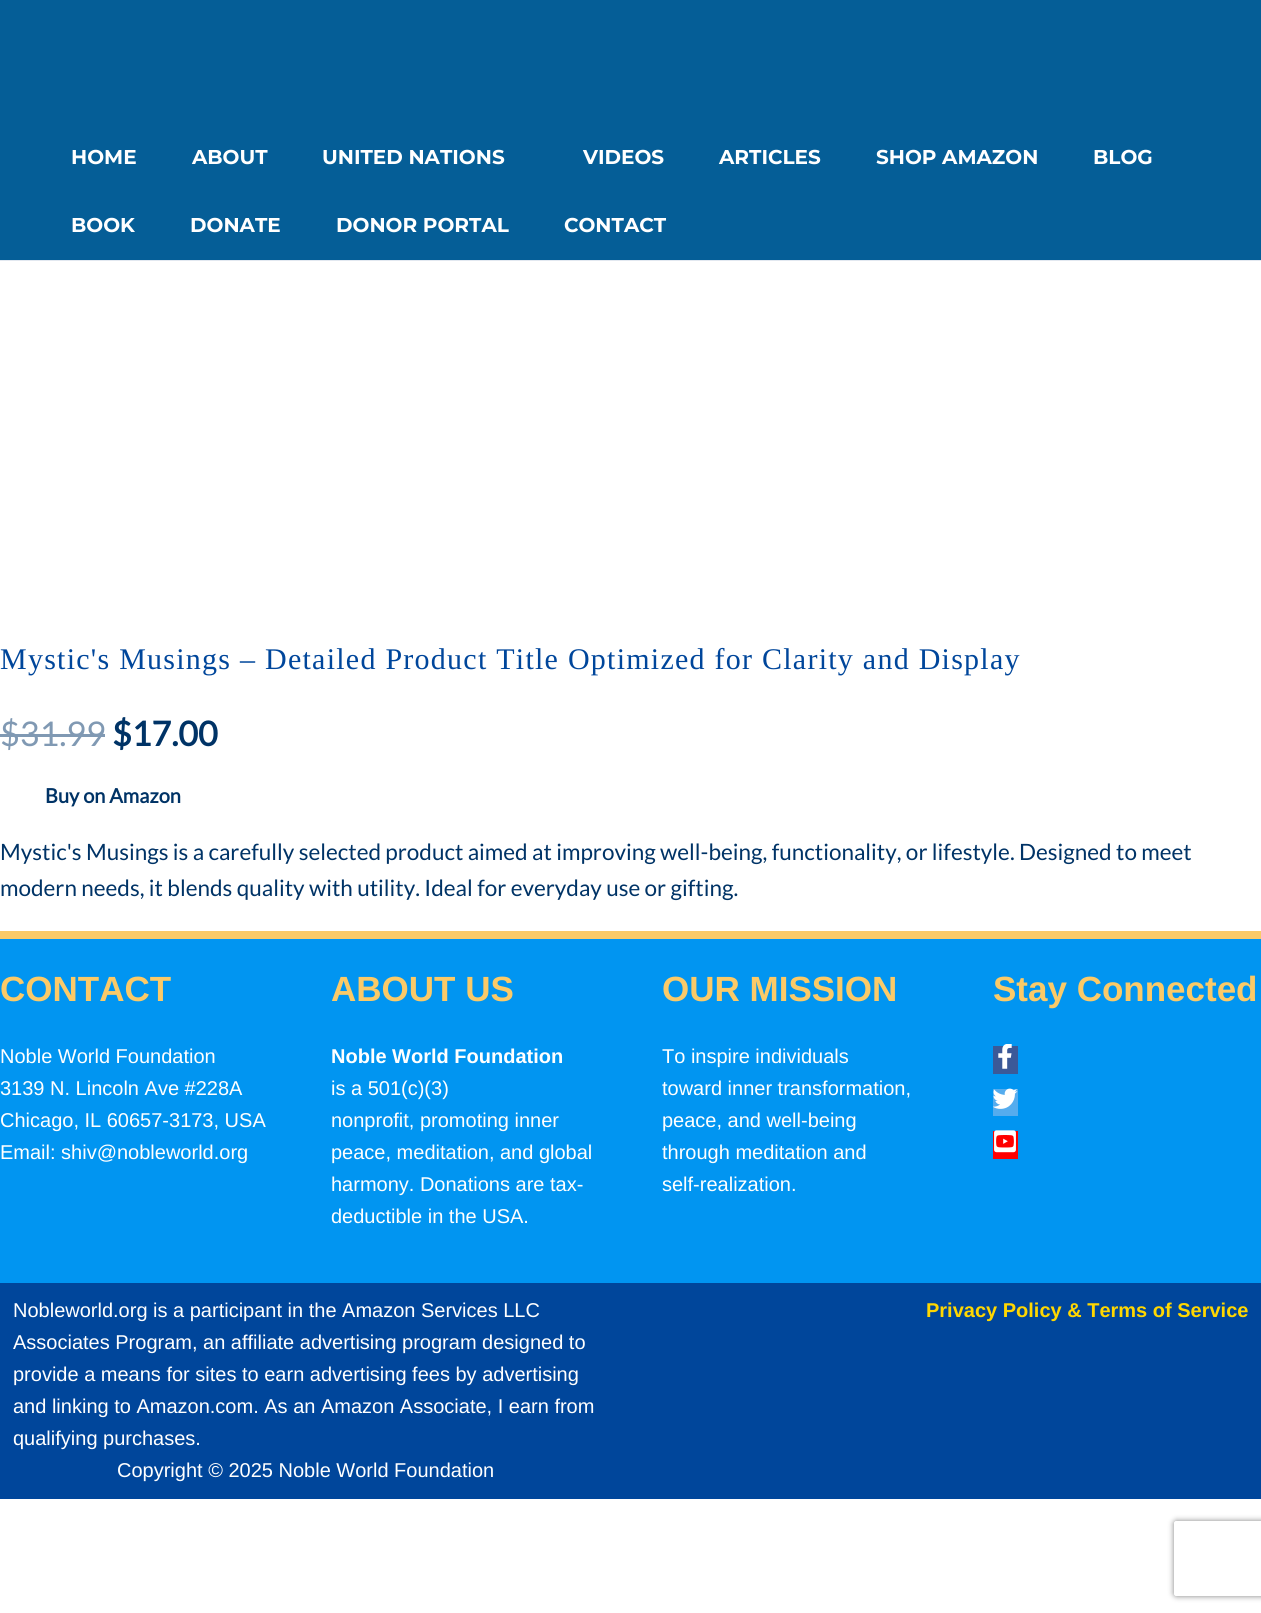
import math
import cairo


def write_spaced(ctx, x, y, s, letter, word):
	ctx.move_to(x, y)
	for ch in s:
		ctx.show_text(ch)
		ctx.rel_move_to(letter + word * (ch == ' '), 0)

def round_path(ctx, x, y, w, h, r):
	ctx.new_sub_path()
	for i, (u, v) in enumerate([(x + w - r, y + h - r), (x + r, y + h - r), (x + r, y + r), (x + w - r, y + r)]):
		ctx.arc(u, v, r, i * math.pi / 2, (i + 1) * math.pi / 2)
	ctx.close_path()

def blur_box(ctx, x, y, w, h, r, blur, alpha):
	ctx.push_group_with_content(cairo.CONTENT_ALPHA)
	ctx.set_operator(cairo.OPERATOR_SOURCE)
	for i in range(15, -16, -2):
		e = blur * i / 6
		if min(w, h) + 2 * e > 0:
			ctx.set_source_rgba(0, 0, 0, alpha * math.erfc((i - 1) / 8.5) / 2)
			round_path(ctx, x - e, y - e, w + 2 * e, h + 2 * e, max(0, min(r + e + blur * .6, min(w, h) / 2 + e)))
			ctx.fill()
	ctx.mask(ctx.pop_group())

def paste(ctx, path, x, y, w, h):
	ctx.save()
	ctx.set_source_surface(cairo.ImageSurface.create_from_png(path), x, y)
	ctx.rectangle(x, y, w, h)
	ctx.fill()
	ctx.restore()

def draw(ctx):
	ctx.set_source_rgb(1, 1, 1)
	ctx.paint()
	ctx.set_source_rgb(0.02, 0.369, 0.592)
	ctx.rectangle(0, 0, 1261, 260)
	ctx.fill()
	ctx.set_source_rgb(0.886, 0.91, 0.941)
	ctx.rectangle(0, 260, 1261, 1)
	ctx.fill()
	ctx.select_font_face('Montserrat Thin')
	ctx.set_font_size(20)
	ctx.set_source_rgb(1, 1, 1)
	for x, y, s in [
		(71, 164, 'HOME'),
		(192, 164, 'ABOUT'),
		(322, 164, 'UNITED NATIONS'),
		(583, 164, 'VIDEOS'),
		(719, 164, 'ARTICLES'),
		(876, 164, 'SHOP AMAZON'),
		(1093, 164, 'BLOG'),
		(71, 232, 'BOOK'),
		(190, 232, 'DONATE'),
		(336, 232, 'DONOR PORTAL'),
		(564, 232, 'CONTACT'),
	]:
		ctx.move_to(x, y)
		ctx.show_text(s)
	ctx.select_font_face('Liberation Serif')
	ctx.set_font_size(30)
	ctx.set_source_rgb(0, 0.275, 0.608)
	write_spaced(ctx, 0, 669, 'Mystic\'s Musings – Detailed Product Title Optimized for Clarity and Display', 1.25, 0)
	ctx.select_font_face('Lato')
	ctx.set_font_size(34)
	ctx.set_source_rgb(0.502, 0.6, 0.702)
	ctx.move_to(0, 746)
	ctx.show_text('$31.99')
	ctx.rectangle(0, 734, 105, 3)
	ctx.fill()
	ctx.select_font_face('Lato', cairo.FONT_SLANT_NORMAL, cairo.FONT_WEIGHT_BOLD)
	ctx.set_source_rgb(0, 0.2, 0.4)
	ctx.move_to(112, 746)
	ctx.show_text('$17.00')
	ctx.set_font_size(20)
	ctx.move_to(45, 803)
	ctx.show_text('Buy on Amazon')
	ctx.select_font_face('Lato')
	ctx.set_font_size(22.5)
	ctx.move_to(0, 860)
	ctx.show_text('Mystic\'s Musings is a carefully selected product aimed at improving well-being, functionality, or lifestyle. Designed to meet')
	ctx.move_to(0, 896)
	ctx.show_text('modern needs, it blends quality with utility. Ideal for everyday use or gifting.')
	ctx.set_source_rgb(0.004, 0.584, 0.945)
	ctx.rectangle(0, 939, 1261, 344)
	ctx.fill()
	ctx.set_source_rgb(0.984, 0.792, 0.408)
	ctx.rectangle(0, 931, 1261, 8)
	ctx.fill()
	ctx.select_font_face('Liberation Sans', cairo.FONT_SLANT_NORMAL, cairo.FONT_WEIGHT_BOLD)
	ctx.set_font_size(35)
	ctx.move_to(0, 1001)
	ctx.show_text('CONTACT')
	ctx.select_font_face('Liberation Sans')
	ctx.set_font_size(20)
	ctx.set_source_rgb(1, 1, 1)
	for x, y, s in [
		(0, 1063, 'Noble World Foundation'),
		(0, 1095, '3139 N. Lincoln Ave #228A'),
		(0, 1127, 'Chicago, IL 60657-3173, USA'),
		(0, 1159, 'Email: shiv@nobleworld.org'),
	]:
		ctx.move_to(x, y)
		ctx.show_text(s)
	ctx.select_font_face('Liberation Sans', cairo.FONT_SLANT_NORMAL, cairo.FONT_WEIGHT_BOLD)
	ctx.set_font_size(35)
	ctx.set_source_rgb(0.984, 0.792, 0.408)
	ctx.move_to(331, 1001)
	ctx.show_text('ABOUT US')
	ctx.set_font_size(20)
	ctx.set_source_rgb(1, 1, 1)
	ctx.move_to(331, 1063)
	ctx.show_text('Noble World Foundation')
	ctx.select_font_face('Liberation Sans')
	for x, y, s in [
		(331, 1095, 'is a 501(c)(3)'),
		(331, 1127, 'nonprofit, promoting inner'),
		(331, 1159, 'peace, meditation, and global'),
		(331, 1191, 'harmony. Donations are tax-'),
		(331, 1223, 'deductible in the USA.'),
	]:
		ctx.move_to(x, y)
		ctx.show_text(s)
	ctx.select_font_face('Liberation Sans', cairo.FONT_SLANT_NORMAL, cairo.FONT_WEIGHT_BOLD)
	ctx.set_font_size(35)
	ctx.set_source_rgb(0.984, 0.792, 0.408)
	ctx.move_to(662, 1001)
	ctx.show_text('OUR MISSION')
	ctx.select_font_face('Liberation Sans')
	ctx.set_font_size(20)
	ctx.set_source_rgb(1, 1, 1)
	for x, y, s in [
		(662, 1063, 'To inspire individuals'),
		(662, 1095, 'toward inner transformation,'),
		(662, 1127, 'peace, and well-being'),
		(662, 1159, 'through meditation and'),
		(662, 1191, 'self-realization.'),
	]:
		ctx.move_to(x, y)
		ctx.show_text(s)
	ctx.select_font_face('Liberation Sans', cairo.FONT_SLANT_NORMAL, cairo.FONT_WEIGHT_BOLD)
	ctx.set_font_size(35)
	ctx.set_source_rgb(0.984, 0.792, 0.408)
	ctx.move_to(993, 1001)
	ctx.show_text('Stay Connected')
	ctx.set_source_rgb(0.231, 0.349, 0.596)
	ctx.rectangle(993, 1046, 25, 28)
	ctx.fill()
	paste(ctx, 'media/1.png', 998, 1044, 14, 25)
	ctx.set_source_rgb(0.333, 0.675, 0.933)
	ctx.rectangle(993, 1089, 25, 27)
	ctx.fill()
	paste(ctx, 'media/2.png', 993, 1088, 25, 21)
	ctx.set_source_rgb(1, 0, 0)
	ctx.rectangle(993, 1131, 25, 28)
	ctx.fill()
	paste(ctx, 'media/3.png', 994, 1130, 22, 23)
	ctx.set_source_rgb(0, 0.275, 0.608)
	ctx.rectangle(0, 1283, 1261, 216)
	ctx.fill()
	ctx.select_font_face('Liberation Sans')
	ctx.set_font_size(20)
	ctx.set_source_rgb(1, 1, 1)
	for x, y, s in [
		(13, 1317, 'Nobleworld.org is a participant in the Amazon Services LLC'),
		(13, 1349, 'Associates Program, an affiliate advertising program designed to'),
		(13, 1381, 'provide a means for sites to earn advertising fees by advertising'),
		(13, 1413, 'and linking to Amazon.com. As an Amazon Associate, I earn from'),
		(13, 1445, 'qualifying purchases.'),
		(117, 1477, 'Copyright © 2025 Noble World Foundation'),
	]:
		ctx.move_to(x, y)
		ctx.show_text(s)
	ctx.select_font_face('Liberation Sans', cairo.FONT_SLANT_NORMAL, cairo.FONT_WEIGHT_BOLD)
	ctx.set_source_rgb(1, 0.843, 0)
	ctx.move_to(926, 1317)
	ctx.show_text('Privacy Policy & Terms of Service')
	ctx.save()
	ctx.set_fill_rule(cairo.FILL_RULE_EVEN_ODD)
	ctx.new_path()
	ctx.move_to(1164, 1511)
	ctx.line_to(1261, 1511)
	ctx.line_to(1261, 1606)
	ctx.line_to(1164, 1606)
	ctx.close_path()
	ctx.move_to(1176.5, 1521)
	ctx.line_to(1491.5, 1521)
	ctx.curve_to(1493, 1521, 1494, 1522, 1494, 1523.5)
	ctx.line_to(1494, 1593.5)
	ctx.curve_to(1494, 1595, 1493, 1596, 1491.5, 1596)
	ctx.line_to(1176.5, 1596)
	ctx.curve_to(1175, 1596, 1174, 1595, 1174, 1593.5)
	ctx.line_to(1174, 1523.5)
	ctx.curve_to(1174, 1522, 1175, 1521, 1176.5, 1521)
	ctx.close_path()
	ctx.clip()
	ctx.set_source_rgb(0.502, 0.502, 0.502)
	blur_box(ctx, 1174, 1521, 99, 75, 2.5, 3, 1)
	ctx.restore()


surface = cairo.ImageSurface(cairo.FORMAT_RGB24, 1261, 1613)
ctx = cairo.Context(surface)
options = cairo.FontOptions()
options.set_hint_metrics(cairo.HINT_METRICS_OFF)
options.set_hint_style(cairo.HINT_STYLE_NONE)
ctx.set_font_options(options)
ctx.set_miter_limit(4)
draw(ctx)
surface.write_to_png('image.png')
